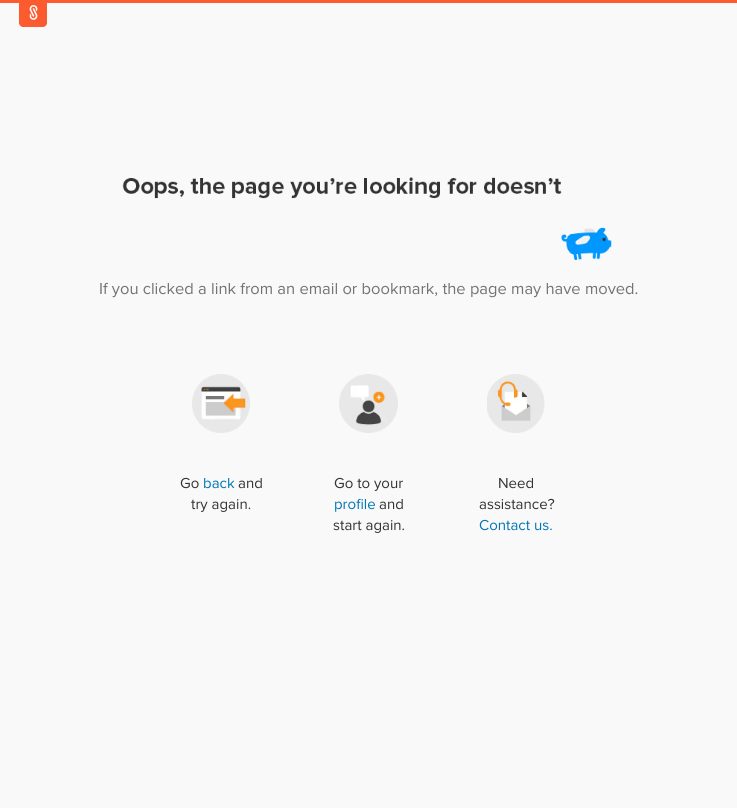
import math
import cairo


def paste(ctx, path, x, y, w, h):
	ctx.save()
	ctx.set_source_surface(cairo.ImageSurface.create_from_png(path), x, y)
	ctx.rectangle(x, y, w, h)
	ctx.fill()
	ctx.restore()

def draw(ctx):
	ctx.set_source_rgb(0.976, 0.976, 0.976)
	ctx.paint()
	ctx.set_source_rgb(0.988, 0.357, 0.188)
	ctx.rectangle(0, 0, 737, 3)
	ctx.fill()
	ctx.new_path()
	ctx.move_to(19, 2)
	ctx.line_to(47, 2)
	ctx.line_to(47, 23)
	ctx.curve_to(47, 25, 45, 27, 43, 27)
	ctx.line_to(23, 27)
	ctx.curve_to(21, 27, 19, 25, 19, 23)
	ctx.close_path()
	ctx.fill()
	paste(ctx, 'media/1.png', 29, 5, 9, 15)
	paste(ctx, 'media/2.png', 122, 174, 496, 86)
	ctx.select_font_face('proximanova')
	ctx.set_font_size(16.5)
	ctx.set_source_rgb(0.451, 0.451, 0.451)
	ctx.move_to(99, 294)
	ctx.show_text('If you clicked a link from an email or bookmark, the page may have moved.')
	paste(ctx, 'media/3.png', 192, 374, 58, 59)
	ctx.set_font_size(15)
	ctx.set_source_rgb(0.2, 0.2, 0.2)
	ctx.move_to(180, 488)
	ctx.show_text('Go')
	ctx.set_source_rgb(0, 0.463, 0.71)
	ctx.move_to(203, 488)
	ctx.show_text('back')
	ctx.set_source_rgb(0.2, 0.2, 0.2)
	ctx.move_to(238, 488)
	ctx.show_text('and')
	ctx.move_to(191, 509)
	ctx.show_text('try again.')
	paste(ctx, 'media/4.png', 339, 374, 59, 59)
	ctx.move_to(334, 488)
	ctx.show_text('Go to your')
	ctx.set_source_rgb(0, 0.463, 0.71)
	ctx.move_to(334, 509)
	ctx.show_text('profile')
	ctx.set_source_rgb(0.2, 0.2, 0.2)
	ctx.move_to(379, 509)
	ctx.show_text('and')
	ctx.move_to(333, 530)
	ctx.show_text('start again.')
	paste(ctx, 'media/5.png', 487, 374, 58, 59)
	ctx.move_to(498, 488)
	ctx.show_text('Need')
	ctx.move_to(479, 509)
	ctx.show_text('assistance?')
	ctx.set_source_rgb(0, 0.463, 0.71)
	ctx.move_to(479, 530)
	ctx.show_text('Contact us.')


surface = cairo.ImageSurface(cairo.FORMAT_RGB24, 737, 808)
ctx = cairo.Context(surface)
options = cairo.FontOptions()
options.set_hint_metrics(cairo.HINT_METRICS_OFF)
options.set_hint_style(cairo.HINT_STYLE_NONE)
ctx.set_font_options(options)
ctx.set_miter_limit(4)
draw(ctx)
surface.write_to_png('image.png')
